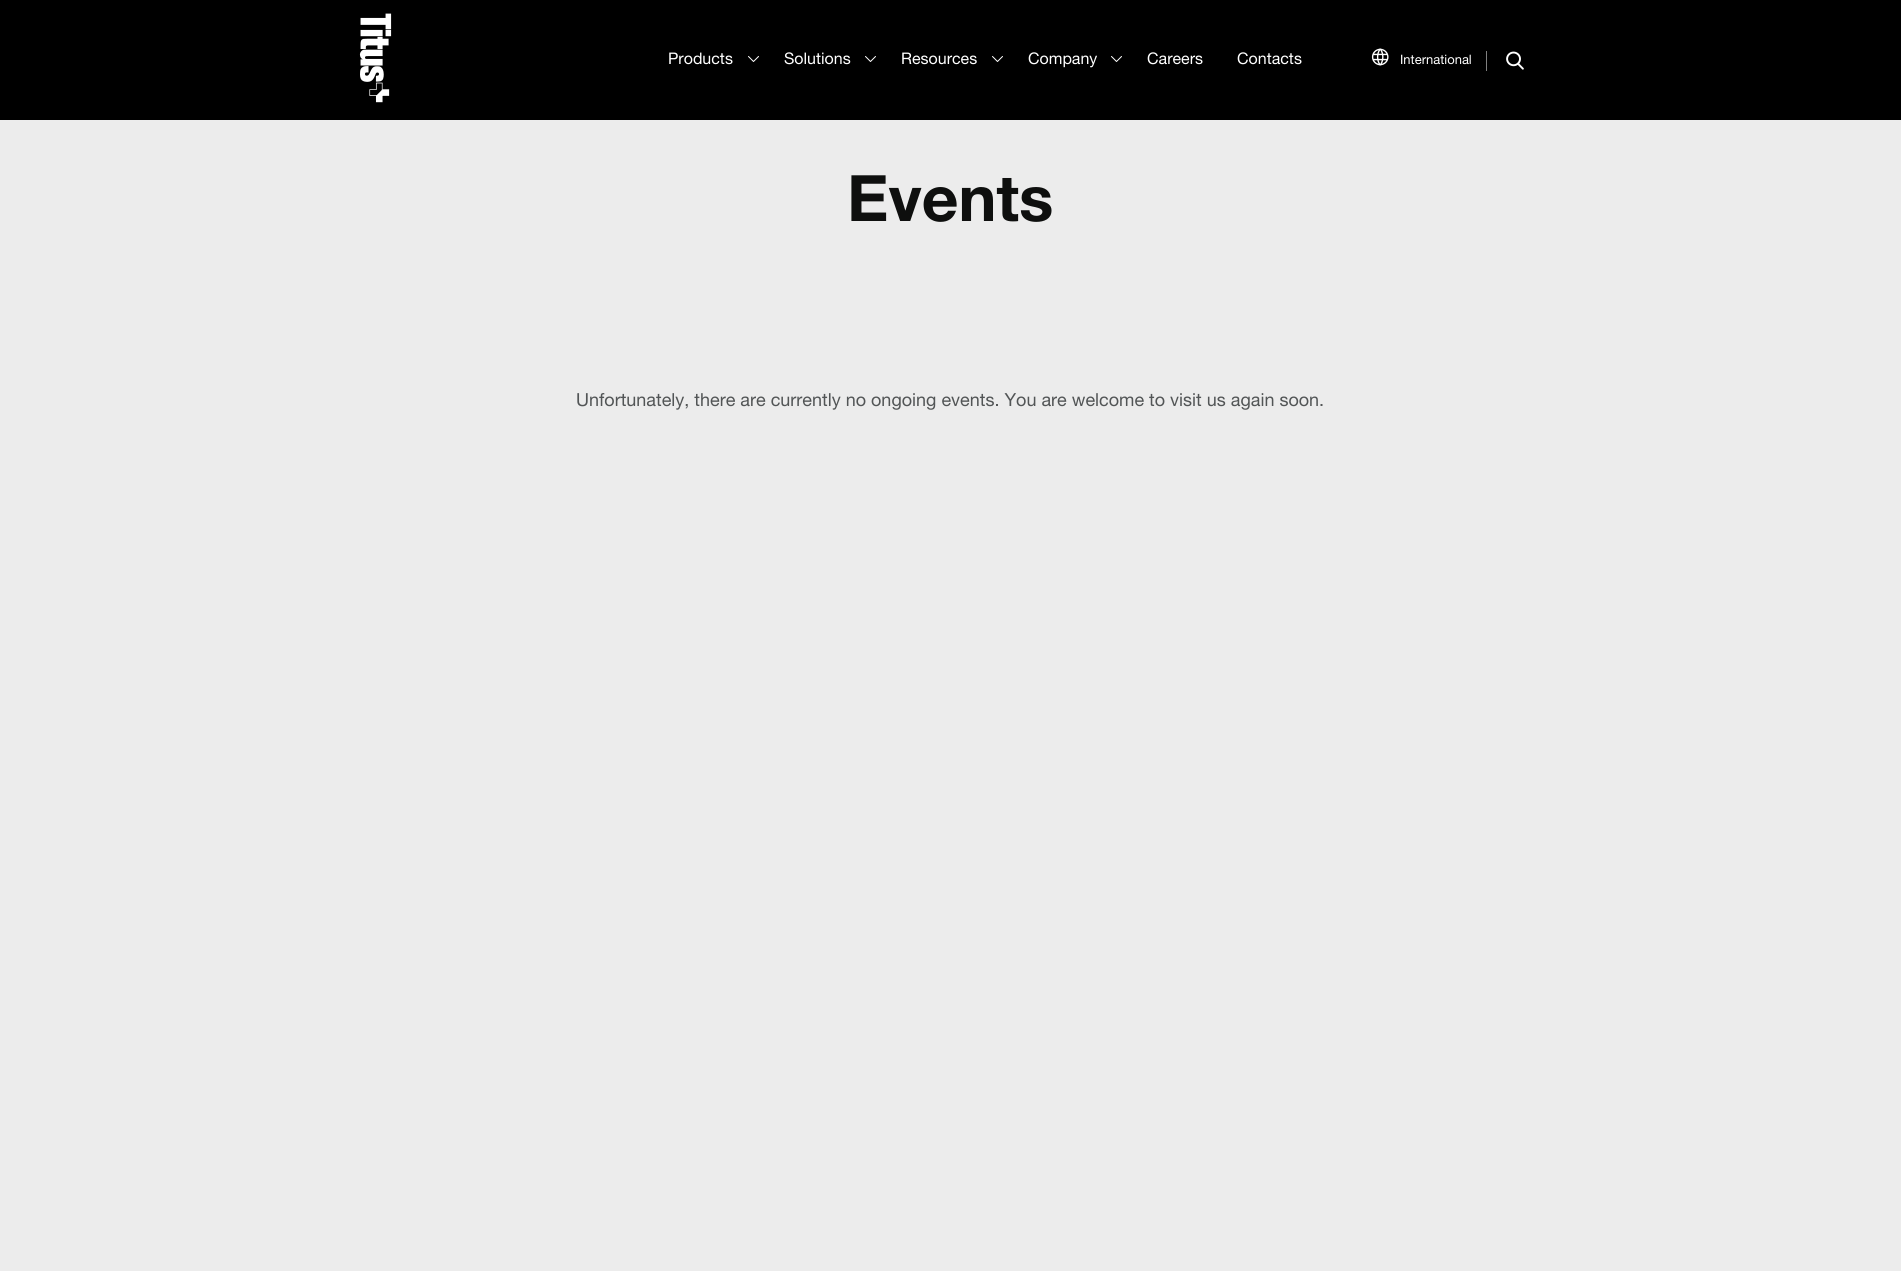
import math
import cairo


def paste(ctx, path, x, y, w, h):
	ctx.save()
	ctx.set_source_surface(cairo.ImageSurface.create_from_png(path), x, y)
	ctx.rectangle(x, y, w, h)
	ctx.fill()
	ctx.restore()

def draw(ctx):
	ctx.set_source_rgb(0.922, 0.925, 0.925)
	ctx.paint()
	ctx.set_source_rgb(0, 0, 0)
	ctx.rectangle(0, 0, 1901, 120)
	ctx.fill()
	paste(ctx, 'media/1.png', 359, 13, 33, 90)
	ctx.select_font_face('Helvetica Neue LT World')
	ctx.set_font_size(16)
	ctx.set_source_rgb(1, 1, 1)
	ctx.move_to(668, 64)
	ctx.show_text('Products')
	ctx.new_path()
	ctx.move_to(748.5, 56.5)
	ctx.line_to(753.5, 61.5)
	ctx.line_to(758.5, 56.5)
	ctx.set_line_width(1)
	ctx.set_line_cap(cairo.LINE_CAP_ROUND)
	ctx.set_line_join(cairo.LINE_JOIN_ROUND)
	ctx.stroke()
	ctx.move_to(784, 64)
	ctx.show_text('Solutions')
	ctx.new_path()
	ctx.move_to(865.5, 56.5)
	ctx.line_to(870.5, 61.5)
	ctx.line_to(875.5, 56.5)
	ctx.stroke()
	ctx.move_to(901, 64)
	ctx.show_text('Resources')
	ctx.new_path()
	ctx.move_to(992.5, 56.5)
	ctx.line_to(997.5, 61.5)
	ctx.line_to(1002.5, 56.5)
	ctx.stroke()
	ctx.move_to(1028, 64)
	ctx.show_text('Company')
	ctx.new_path()
	ctx.move_to(1111.5, 56.5)
	ctx.line_to(1116.5, 61.5)
	ctx.line_to(1121.5, 56.5)
	ctx.stroke()
	ctx.move_to(1147, 64)
	ctx.show_text('Careers')
	ctx.move_to(1237, 64)
	ctx.show_text('Contacts')
	paste(ctx, 'media/2.png', 1371, 48, 18, 18)
	ctx.set_font_size(13)
	ctx.move_to(1400, 64)
	ctx.show_text('International')
	ctx.set_source_rgb(0.502, 0.502, 0.502)
	ctx.rectangle(1486, 51, 1, 20)
	ctx.fill()
	paste(ctx, 'media/3.png', 1506, 51, 18, 19)
	ctx.select_font_face('Helvetica Neue LT World', cairo.FONT_SLANT_NORMAL, cairo.FONT_WEIGHT_BOLD)
	ctx.set_font_size(64)
	ctx.set_source_rgb(0.055, 0.059, 0.055)
	ctx.move_to(847, 221)
	ctx.show_text('Events')
	ctx.select_font_face('Helvetica Neue LT World')
	ctx.set_font_size(18)
	ctx.set_source_rgb(0.322, 0.333, 0.337)
	ctx.move_to(576, 406)
	ctx.show_text('Unfortunately, there are currently no ongoing events. You are welcome to visit us again soon.')


surface = cairo.ImageSurface(cairo.FORMAT_RGB24, 1901, 1271)
ctx = cairo.Context(surface)
options = cairo.FontOptions()
options.set_hint_metrics(cairo.HINT_METRICS_OFF)
options.set_hint_style(cairo.HINT_STYLE_NONE)
ctx.set_font_options(options)
ctx.set_miter_limit(4)
draw(ctx)
surface.write_to_png('image.png')
